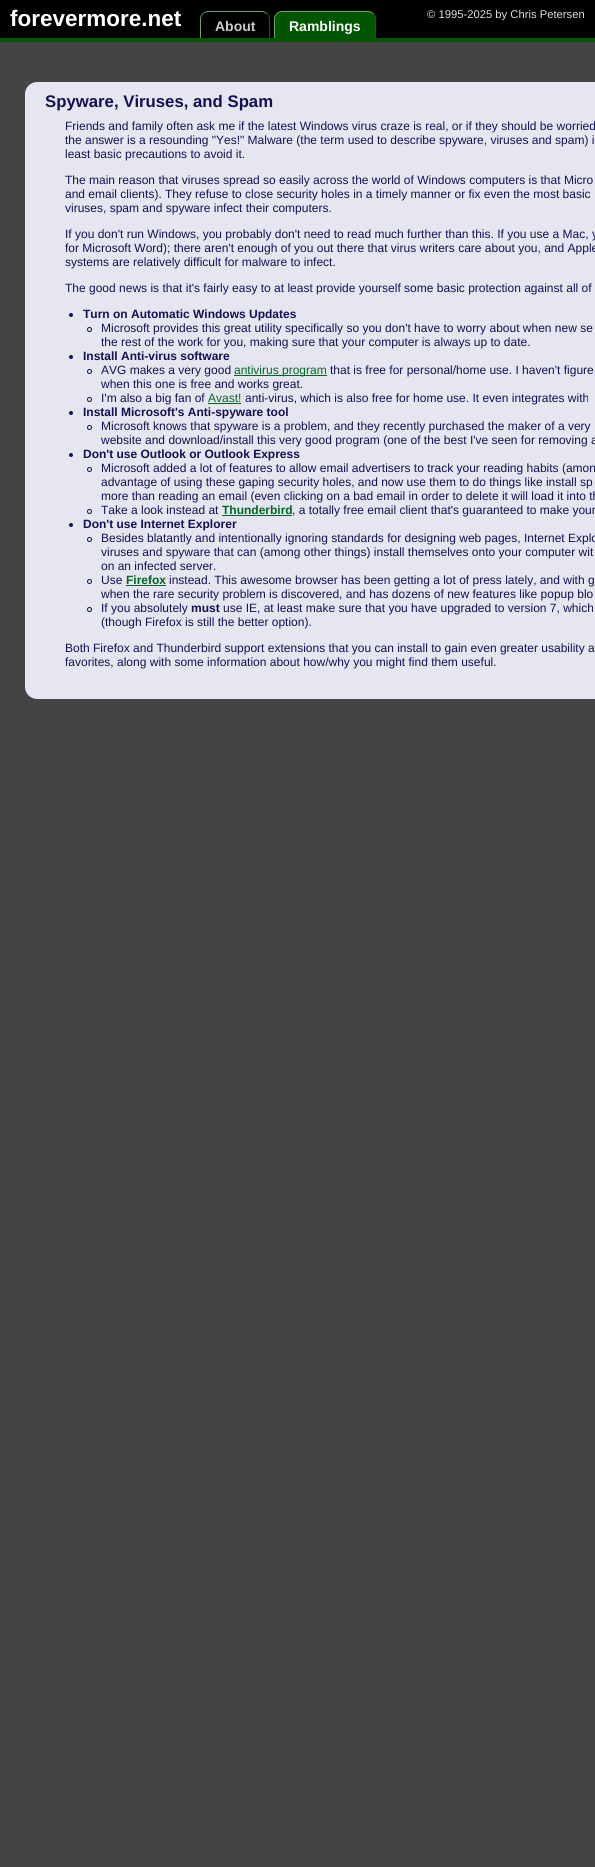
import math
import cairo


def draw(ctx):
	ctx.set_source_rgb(0.267, 0.267, 0.267)
	ctx.paint()
	ctx.set_source_rgb(0, 0, 0)
	ctx.rectangle(0, 0, 595, 38)
	ctx.fill()
	ctx.set_source_rgb(0, 0.333, 0)
	ctx.rectangle(0, 38, 595, 4)
	ctx.fill()
	ctx.select_font_face('Liberation Sans', cairo.FONT_SLANT_NORMAL, cairo.FONT_WEIGHT_BOLD)
	ctx.set_font_size(22.5)
	ctx.set_source_rgb(1, 1, 1)
	ctx.move_to(10, 26)
	ctx.show_text('forevermore.net')
	ctx.set_source_rgb(0.4, 0.667, 0.4)
	ctx.new_path()
	ctx.move_to(208, 11)
	ctx.curve_to(206, 11, 204, 12, 202, 14)
	ctx.line_to(203, 14)
	ctx.curve_to(204, 13, 206, 12, 208, 12)
	ctx.line_to(262, 12)
	ctx.curve_to(264, 12, 266, 13, 267, 14)
	ctx.line_to(268, 14)
	ctx.curve_to(266, 12, 264, 11, 262, 11)
	ctx.close_path()
	ctx.fill()
	ctx.set_source_rgb(0.133, 0.333, 0.133)
	ctx.new_path()
	ctx.move_to(269, 38)
	ctx.line_to(270, 38)
	ctx.line_to(270, 19)
	ctx.curve_to(270, 17, 269, 15, 267.5, 13.5)
	ctx.line_to(267, 14)
	ctx.curve_to(268, 15, 269, 17, 269, 19)
	ctx.close_path()
	ctx.fill()
	ctx.set_source_rgb(0.4, 0.667, 0.4)
	ctx.new_path()
	ctx.move_to(200, 38)
	ctx.line_to(201, 38)
	ctx.line_to(201, 19)
	ctx.curve_to(201, 17, 202, 15, 203, 14)
	ctx.line_to(202.5, 13.5)
	ctx.curve_to(201, 15, 200, 17, 200, 19)
	ctx.close_path()
	ctx.fill()
	ctx.set_font_size(14)
	ctx.set_source_rgb(0.804, 0.8, 0.8)
	ctx.move_to(215, 31)
	ctx.show_text('About')
	ctx.set_source_rgb(0, 0.333, 0)
	ctx.new_path()
	ctx.move_to(282, 11)
	ctx.line_to(368, 11)
	ctx.curve_to(372.5, 11, 376, 14.5, 376, 19)
	ctx.line_to(376, 38)
	ctx.line_to(274, 38)
	ctx.line_to(274, 19)
	ctx.curve_to(274, 14.5, 277.5, 11, 282, 11)
	ctx.close_path()
	ctx.fill()
	ctx.set_source_rgb(0.4, 0.667, 0.4)
	ctx.new_path()
	ctx.move_to(282, 11)
	ctx.curve_to(280, 11, 278, 12, 276, 14)
	ctx.line_to(277, 14)
	ctx.curve_to(278, 13, 280, 12, 282, 12)
	ctx.line_to(368, 12)
	ctx.curve_to(370, 12, 372, 13, 373, 14)
	ctx.line_to(374, 14)
	ctx.curve_to(372, 12, 370, 11, 368, 11)
	ctx.close_path()
	ctx.fill()
	ctx.set_source_rgb(0.133, 0.333, 0.133)
	ctx.new_path()
	ctx.move_to(375, 38)
	ctx.line_to(376, 38)
	ctx.line_to(376, 19)
	ctx.curve_to(376, 17, 375, 15, 373.5, 13.5)
	ctx.line_to(373, 14)
	ctx.curve_to(374, 15, 375, 17, 375, 19)
	ctx.close_path()
	ctx.fill()
	ctx.set_source_rgb(0.4, 0.667, 0.4)
	ctx.new_path()
	ctx.move_to(274, 38)
	ctx.line_to(275, 38)
	ctx.line_to(275, 19)
	ctx.curve_to(275, 17, 276, 15, 277, 14)
	ctx.line_to(276.5, 13.5)
	ctx.curve_to(275, 15, 274, 17, 274, 19)
	ctx.close_path()
	ctx.fill()
	ctx.set_source_rgb(1, 1, 1)
	ctx.move_to(289, 31)
	ctx.show_text('Ramblings')
	ctx.select_font_face('Liberation Sans')
	ctx.set_font_size(11.25)
	ctx.set_source_rgb(0.867, 0.867, 0.867)
	ctx.move_to(427, 18)
	ctx.show_text('© 1995-2025 by Chris Petersen')
	ctx.set_source_rgb(0.902, 0.902, 0.941)
	ctx.new_path()
	ctx.move_to(37, 82)
	ctx.line_to(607, 82)
	ctx.line_to(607, 699)
	ctx.line_to(37, 699)
	ctx.curve_to(30.5, 699, 25, 693.5, 25, 687)
	ctx.line_to(25, 94)
	ctx.curve_to(25, 87.5, 30.5, 82, 37, 82)
	ctx.close_path()
	ctx.fill()
	ctx.select_font_face('Liberation Sans', cairo.FONT_SLANT_NORMAL, cairo.FONT_WEIGHT_BOLD)
	ctx.set_font_size(16.75)
	ctx.set_source_rgb(0.067, 0.067, 0.333)
	ctx.move_to(45, 107)
	ctx.show_text('Spyware, Viruses, and Spam')
	ctx.select_font_face('Liberation Sans')
	ctx.set_font_size(12)
	for x, y, s in [
		(65, 130, 'Friends and family often ask me if the latest Windows virus craze is real, or if they should be worried'),
		(65, 144, 'the answer is a resounding "Yes!" Malware (the term used to describe spyware, viruses and spam) i'),
		(65, 158, 'least basic precautions to avoid it.'),
		(65, 184, 'The main reason that viruses spread so easily across the world of Windows computers is that Micro'),
		(65, 198, 'and email clients). They refuse to close security holes in a timely manner or fix even the most basic'),
		(65, 212, 'viruses, spam and spyware infect their computers.'),
		(65, 238, 'If you don\'t run Windows, you probably don\'t need to read much further than this. If you use a Mac, y'),
		(65, 252, 'for Microsoft Word); there aren\'t enough of you out there that virus writers care about you, and Apple'),
		(65, 266, 'systems are relatively difficult for malware to infect.'),
		(65, 292, 'The good news is that it\'s fairly easy to at least provide yourself some basic protection against all of'),
	]:
		ctx.move_to(x, y)
		ctx.show_text(s)
	ctx.new_path()
	ctx.arc(71, 315, 2, 0, 2 * math.pi)
	ctx.fill()
	ctx.select_font_face('Liberation Sans', cairo.FONT_SLANT_NORMAL, cairo.FONT_WEIGHT_BOLD)
	ctx.move_to(83, 318)
	ctx.show_text('Turn on Automatic Windows Updates')
	ctx.new_path()
	ctx.arc(89.5, 329.5, 2, 0, 2 * math.pi)
	ctx.set_line_width(1)
	ctx.stroke()
	ctx.select_font_face('Liberation Sans')
	ctx.move_to(101, 332)
	ctx.show_text('Microsoft provides this great utility specifically so you don\'t have to worry about when new se')
	ctx.move_to(101, 346)
	ctx.show_text('the rest of the work for you, making sure that your computer is always up to date.')
	ctx.new_path()
	ctx.arc(71, 357, 2, 0, 2 * math.pi)
	ctx.fill()
	ctx.select_font_face('Liberation Sans', cairo.FONT_SLANT_NORMAL, cairo.FONT_WEIGHT_BOLD)
	ctx.move_to(83, 360)
	ctx.show_text('Install Anti-virus software')
	ctx.new_path()
	ctx.arc(89.5, 371.5, 2, 0, 2 * math.pi)
	ctx.stroke()
	ctx.select_font_face('Liberation Sans')
	ctx.move_to(101, 374)
	ctx.show_text('AVG makes a very good')
	ctx.set_source_rgb(0, 0.4, 0.133)
	ctx.rectangle(234, 375, 93, 1)
	ctx.fill()
	ctx.move_to(234, 374)
	ctx.show_text('antivirus program')
	ctx.set_source_rgb(0.067, 0.067, 0.333)
	ctx.move_to(330, 374)
	ctx.show_text('that is free for personal/home use. I haven\'t figure')
	ctx.move_to(101, 388)
	ctx.show_text('when this one is free and works great.')
	ctx.new_path()
	ctx.arc(89.5, 399.5, 2, 0, 2 * math.pi)
	ctx.stroke()
	ctx.move_to(101, 402)
	ctx.show_text('I\'m also a big fan of')
	ctx.set_source_rgb(0, 0.4, 0.133)
	ctx.move_to(208, 402)
	ctx.show_text('Avast!')
	ctx.rectangle(208, 403, 33, 1)
	ctx.fill()
	ctx.set_source_rgb(0.067, 0.067, 0.333)
	ctx.move_to(245, 402)
	ctx.show_text('anti-virus, which is also free for home use. It even integrates with')
	ctx.new_path()
	ctx.arc(71, 413, 2, 0, 2 * math.pi)
	ctx.fill()
	ctx.select_font_face('Liberation Sans', cairo.FONT_SLANT_NORMAL, cairo.FONT_WEIGHT_BOLD)
	ctx.move_to(83, 416)
	ctx.show_text('Install Microsoft\'s Anti-spyware tool')
	ctx.new_path()
	ctx.arc(89.5, 427.5, 2, 0, 2 * math.pi)
	ctx.stroke()
	ctx.select_font_face('Liberation Sans')
	ctx.move_to(101, 430)
	ctx.show_text('Microsoft knows that spyware is a problem, and they recently purchased the maker of a very')
	ctx.move_to(101, 444)
	ctx.show_text('website and download/install this very good program (one of the best I\'ve seen for removing a')
	ctx.new_path()
	ctx.arc(71, 455, 2, 0, 2 * math.pi)
	ctx.fill()
	ctx.select_font_face('Liberation Sans', cairo.FONT_SLANT_NORMAL, cairo.FONT_WEIGHT_BOLD)
	ctx.move_to(83, 458)
	ctx.show_text('Don\'t use Outlook or Outlook Express')
	ctx.new_path()
	ctx.arc(89.5, 469.5, 2, 0, 2 * math.pi)
	ctx.stroke()
	ctx.select_font_face('Liberation Sans')
	for x, y, s in [
		(101, 472, 'Microsoft added a lot of features to allow email advertisers to track your reading habits (amon'),
		(101, 486, 'advantage of using these gaping security holes, and now use them to do things like install sp'),
		(101, 500, 'more than reading an email (even clicking on a bad email in order to delete it will load it into th'),
	]:
		ctx.move_to(x, y)
		ctx.show_text(s)
	ctx.new_path()
	ctx.arc(89.5, 511.5, 2, 0, 2 * math.pi)
	ctx.stroke()
	ctx.move_to(101, 514)
	ctx.show_text('Take a look instead at')
	ctx.select_font_face('Liberation Sans', cairo.FONT_SLANT_NORMAL, cairo.FONT_WEIGHT_BOLD)
	ctx.set_source_rgb(0, 0.4, 0.133)
	ctx.move_to(222, 514)
	ctx.show_text('Thunderbird')
	ctx.rectangle(222, 515, 70, 1)
	ctx.fill()
	ctx.select_font_face('Liberation Sans')
	ctx.set_source_rgb(0.067, 0.067, 0.333)
	ctx.move_to(292, 514)
	ctx.show_text(', a totally free email client that\'s guaranteed to make your')
	ctx.new_path()
	ctx.arc(71, 525, 2, 0, 2 * math.pi)
	ctx.fill()
	ctx.select_font_face('Liberation Sans', cairo.FONT_SLANT_NORMAL, cairo.FONT_WEIGHT_BOLD)
	ctx.move_to(83, 528)
	ctx.show_text('Don\'t use Internet Explorer')
	ctx.new_path()
	ctx.arc(89.5, 539.5, 2, 0, 2 * math.pi)
	ctx.stroke()
	ctx.select_font_face('Liberation Sans')
	for x, y, s in [
		(101, 542, 'Besides blatantly and intentionally ignoring standards for designing web pages, Internet Explo'),
		(101, 556, 'viruses and spyware that can (among other things) install themselves onto your computer wit'),
		(101, 570, 'on an infected server.'),
	]:
		ctx.move_to(x, y)
		ctx.show_text(s)
	ctx.new_path()
	ctx.arc(89.5, 581.5, 2, 0, 2 * math.pi)
	ctx.stroke()
	ctx.move_to(101, 584)
	ctx.show_text('Use')
	ctx.select_font_face('Liberation Sans', cairo.FONT_SLANT_NORMAL, cairo.FONT_WEIGHT_BOLD)
	ctx.set_source_rgb(0, 0.4, 0.133)
	ctx.move_to(126, 584)
	ctx.show_text('Firefox')
	ctx.rectangle(126, 585, 40, 1)
	ctx.fill()
	ctx.select_font_face('Liberation Sans')
	ctx.set_source_rgb(0.067, 0.067, 0.333)
	ctx.move_to(169, 584)
	ctx.show_text('instead. This awesome browser has been getting a lot of press lately, and with g')
	ctx.move_to(101, 598)
	ctx.show_text('when the rare security problem is discovered, and has dozens of new features like popup blo')
	ctx.new_path()
	ctx.arc(89.5, 609.5, 2, 0, 2 * math.pi)
	ctx.stroke()
	ctx.move_to(101, 612)
	ctx.show_text('If you absolutely')
	ctx.select_font_face('Liberation Sans', cairo.FONT_SLANT_NORMAL, cairo.FONT_WEIGHT_BOLD)
	ctx.move_to(191, 612)
	ctx.show_text('must')
	ctx.select_font_face('Liberation Sans')
	for x, y, s in [
		(223, 612, 'use IE, at least make sure that you have upgraded to version 7, which'),
		(101, 626, '(though Firefox is still the better option).'),
		(65, 652, 'Both Firefox and Thunderbird support extensions that you can install to gain even greater usability a'),
		(65, 666, 'favorites, along with some information about how/why you might find them useful.'),
	]:
		ctx.move_to(x, y)
		ctx.show_text(s)


surface = cairo.ImageSurface(cairo.FORMAT_RGB24, 595, 1867)
ctx = cairo.Context(surface)
options = cairo.FontOptions()
options.set_hint_metrics(cairo.HINT_METRICS_OFF)
options.set_hint_style(cairo.HINT_STYLE_NONE)
ctx.set_font_options(options)
ctx.set_miter_limit(4)
draw(ctx)
surface.write_to_png('image.png')
